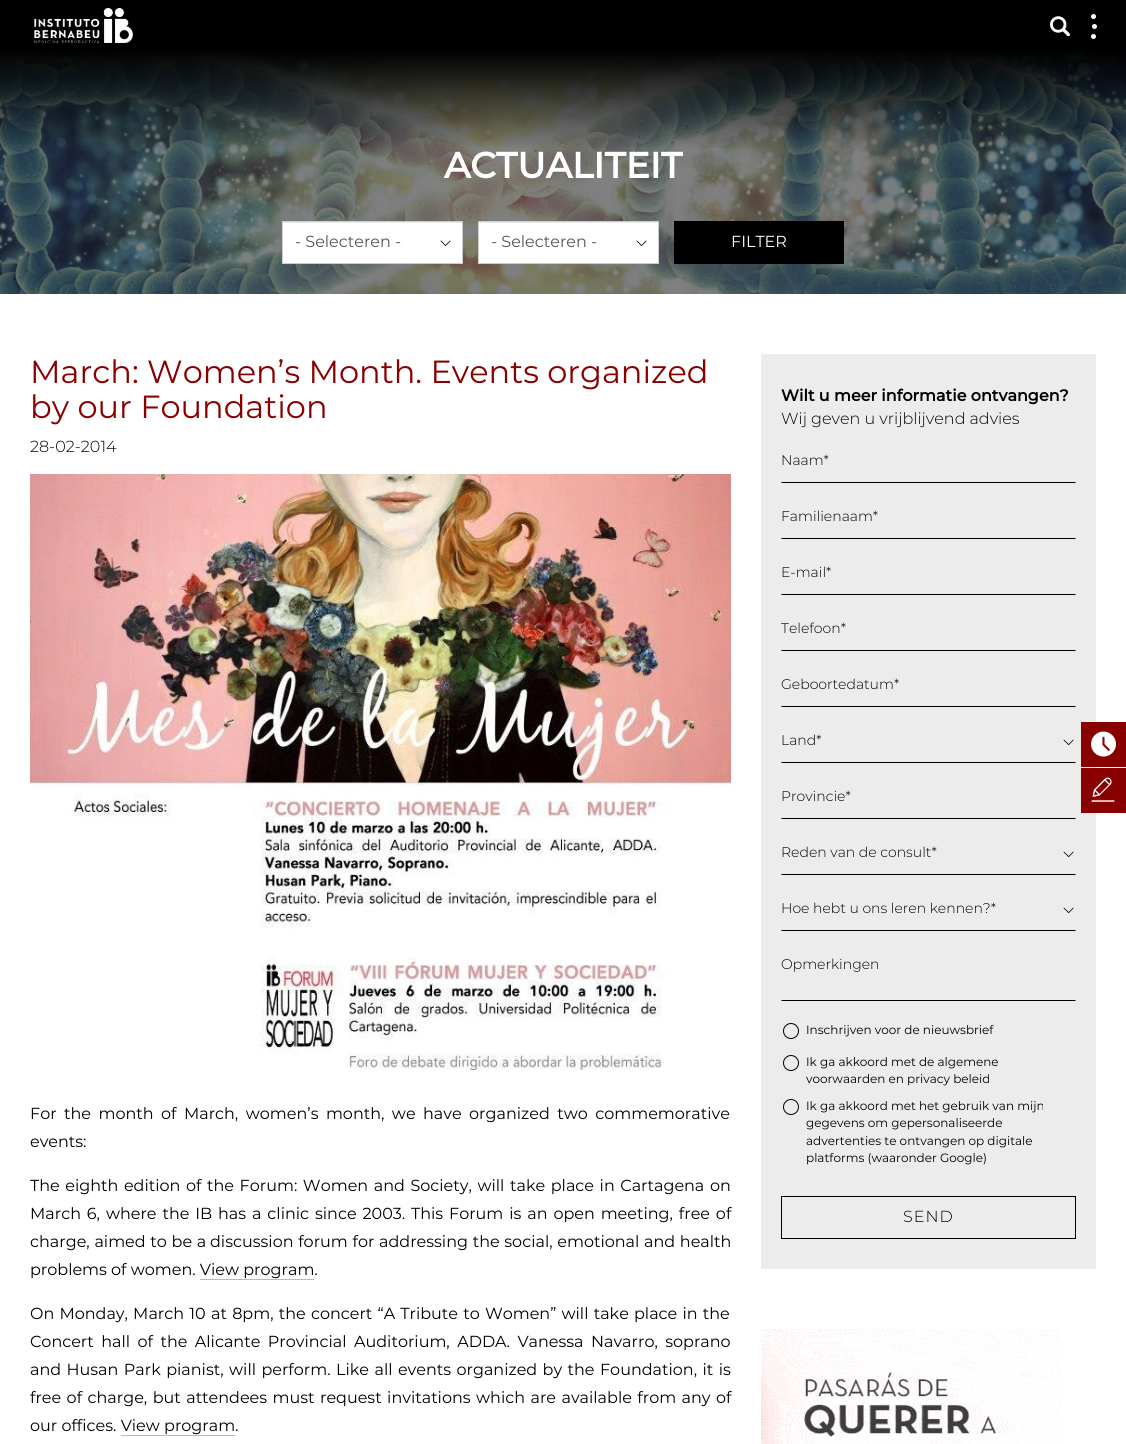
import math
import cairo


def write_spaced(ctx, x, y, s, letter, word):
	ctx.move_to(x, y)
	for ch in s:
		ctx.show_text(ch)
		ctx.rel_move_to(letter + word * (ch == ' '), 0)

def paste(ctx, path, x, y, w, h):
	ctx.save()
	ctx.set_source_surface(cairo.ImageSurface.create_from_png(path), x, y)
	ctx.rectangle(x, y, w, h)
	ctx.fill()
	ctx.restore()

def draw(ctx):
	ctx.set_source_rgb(1, 1, 1)
	ctx.paint()
	paste(ctx, 'media/3.png', 0, 50, 1126, 244)
	gradient = cairo.LinearGradient(563, 0, 563, 150)
	gradient.add_color_stop_rgba(0, 0, 0, 0, 1)
	gradient.add_color_stop_rgba(0.33, 0, 0, 0, 1)
	gradient.add_color_stop_rgba(1, 0, 0, 0, 0)
	ctx.set_source(gradient)
	ctx.rectangle(0, 0, 1126, 148)
	ctx.fill()
	paste(ctx, 'media/1.png', 34, 7, 100, 36)
	paste(ctx, 'media/2.png', 1050, 16, 20, 21)
	ctx.set_source_rgb(1, 1, 1)
	ctx.arc(1094.5, 26.5, 2.5, 0, 2 * math.pi)
	ctx.fill()
	ctx.arc(1093.5, 16.5, 2.5, 0, 2 * math.pi)
	ctx.fill()
	ctx.arc(1093.5, 36.5, 2.5, 0, 2 * math.pi)
	ctx.fill()
	ctx.select_font_face('Montserrat', cairo.FONT_SLANT_NORMAL, cairo.FONT_WEIGHT_BOLD)
	ctx.set_font_size(36)
	ctx.move_to(444, 178)
	ctx.show_text('ACTUALITEIT')
	ctx.rectangle(283, 223, 179, 40)
	ctx.fill()
	ctx.set_source_rgb(0.925, 0.925, 0.925)
	ctx.rectangle(283, 222, 179, 1)
	ctx.fill()
	ctx.rectangle(282.5, 221.5, 180, 42)
	ctx.set_source_rgb(0.8, 0.8, 0.8)
	ctx.set_line_width(1)
	ctx.stroke()
	ctx.select_font_face('Montserrat')
	ctx.set_font_size(16)
	ctx.set_source_rgb(0.333, 0.333, 0.333)
	ctx.move_to(295, 247)
	ctx.show_text('- Selecteren -')
	paste(ctx, 'media/4.png', 440, 240, 11, 6)
	ctx.set_source_rgb(1, 1, 1)
	ctx.rectangle(479, 223, 179, 40)
	ctx.fill()
	ctx.set_source_rgb(0.925, 0.925, 0.925)
	ctx.rectangle(479, 222, 179, 1)
	ctx.fill()
	ctx.rectangle(478.5, 221.5, 180, 42)
	ctx.set_source_rgb(0.8, 0.8, 0.8)
	ctx.stroke()
	ctx.set_source_rgb(0.333, 0.333, 0.333)
	ctx.move_to(491, 247)
	ctx.show_text('- Selecteren -')
	paste(ctx, 'media/4.png', 636, 240, 11, 6)
	ctx.set_source_rgb(0, 0, 0)
	ctx.rectangle(674, 221, 170, 43)
	ctx.fill()
	ctx.set_source_rgb(1, 1, 1)
	ctx.move_to(731, 247)
	ctx.show_text('FILTER')
	ctx.set_font_size(32)
	ctx.set_source_rgb(0.533, 0, 0)
	ctx.move_to(30, 383)
	ctx.show_text('March: Women’s Month. Events organized')
	ctx.move_to(30, 418)
	ctx.show_text('by our Foundation')
	ctx.select_font_face('Montserrat Light')
	ctx.set_font_size(16)
	ctx.set_source_rgb(0, 0, 0)
	ctx.move_to(30, 452)
	ctx.show_text('28-02-2014')
	paste(ctx, 'media/5.png', 30, 474, 701, 596)
	ctx.select_font_face('Montserrat')
	write_spaced(ctx, 30, 1119, 'For the month of March, women’s month, we have organized two commemorative', 0, 3.25)
	ctx.move_to(30, 1147)
	ctx.show_text('events:')
	write_spaced(ctx, 30, 1191, 'The eighth edition of the Forum: Women and Society, will take place in Cartagena on', 0, 1.4)
	write_spaced(ctx, 30, 1219, 'March 6, where the IB has a clinic since 2003. This Forum is an open meeting, free of', 0, 1.7)
	write_spaced(ctx, 30, 1247, 'charge, aimed to be a', 0, 0.5)
	write_spaced(ctx, 210, 1247, 'discussion forum for addressing the social, emotional and health', 0, 0.5)
	ctx.move_to(30, 1275)
	ctx.show_text('problems of women. View program.')
	ctx.set_source_rgb(0.937, 0.631, 0.631)
	ctx.rectangle(200, 1279, 114, 1)
	ctx.fill()
	ctx.set_source_rgb(0, 0, 0)
	write_spaced(ctx, 30, 1319, 'On Monday, March 10', 0, 1)
	write_spaced(ctx, 211, 1319, 'at 8pm, the concert “A Tribute to Women” will take place in the', 0, 1)
	write_spaced(ctx, 30, 1347, 'Concert hall of the Alicante Provincial Auditorium, ADDA. Vanessa Navarro, soprano', 0, 3.25)
	write_spaced(ctx, 30, 1375, 'and Husan Park pianist, will perform. Like all events organized by the Foundation, it is', 0, 1.25)
	write_spaced(ctx, 30, 1403, 'free of charge, but attendees must request invitations which are available from any of', 0, 1.25)
	ctx.move_to(30, 1431)
	ctx.show_text('our offices. View program.')
	ctx.set_source_rgb(0.937, 0.631, 0.631)
	ctx.rectangle(121, 1435, 114, 1)
	ctx.fill()
	ctx.set_source_rgb(0.925, 0.925, 0.925)
	ctx.rectangle(761, 354, 335, 915)
	ctx.fill()
	ctx.select_font_face('Montserrat', cairo.FONT_SLANT_NORMAL, cairo.FONT_WEIGHT_BOLD)
	ctx.set_source_rgb(0, 0, 0)
	ctx.move_to(781, 401)
	ctx.show_text('Wilt u meer informatie ontvangen?')
	ctx.select_font_face('Montserrat Light')
	ctx.move_to(781, 424)
	ctx.show_text('Wij geven u vrijblijvend advies')
	ctx.set_font_size(14)
	ctx.move_to(781, 465)
	ctx.show_text('Naam*')
	ctx.new_path()
	ctx.move_to(1076, 483)
	ctx.line_to(781, 483)
	ctx.line_to(782, 482)
	ctx.line_to(1075, 482)
	ctx.close_path()
	ctx.fill()
	ctx.move_to(781, 521)
	ctx.show_text('Familienaam*')
	ctx.new_path()
	ctx.move_to(1076, 539)
	ctx.line_to(781, 539)
	ctx.line_to(782, 538)
	ctx.line_to(1075, 538)
	ctx.close_path()
	ctx.fill()
	ctx.move_to(781, 577)
	ctx.show_text('E-mail*')
	ctx.new_path()
	ctx.move_to(1076, 595)
	ctx.line_to(781, 595)
	ctx.line_to(782, 594)
	ctx.line_to(1075, 594)
	ctx.close_path()
	ctx.fill()
	ctx.move_to(781, 633)
	ctx.show_text('Telefoon*')
	ctx.new_path()
	ctx.move_to(1076, 651)
	ctx.line_to(781, 651)
	ctx.line_to(782, 650)
	ctx.line_to(1075, 650)
	ctx.close_path()
	ctx.fill()
	ctx.move_to(781, 689)
	ctx.show_text('Geboortedatum*')
	ctx.new_path()
	ctx.move_to(1076, 707)
	ctx.line_to(781, 707)
	ctx.line_to(782, 706)
	ctx.line_to(1075, 706)
	ctx.close_path()
	ctx.fill()
	ctx.move_to(781, 745)
	ctx.show_text('Land*')
	paste(ctx, 'media/6.png', 1063, 739, 11, 7)
	ctx.new_path()
	ctx.move_to(1076, 763)
	ctx.line_to(781, 763)
	ctx.line_to(782, 762)
	ctx.line_to(1075, 762)
	ctx.close_path()
	ctx.fill()
	ctx.move_to(781, 801)
	ctx.show_text('Provincie*')
	ctx.new_path()
	ctx.move_to(1076, 819)
	ctx.line_to(781, 819)
	ctx.line_to(782, 818)
	ctx.line_to(1075, 818)
	ctx.close_path()
	ctx.fill()
	ctx.move_to(781, 857)
	ctx.show_text('Reden van de consult*')
	paste(ctx, 'media/6.png', 1063, 851, 11, 7)
	ctx.new_path()
	ctx.move_to(1076, 875)
	ctx.line_to(781, 875)
	ctx.line_to(782, 874)
	ctx.line_to(1075, 874)
	ctx.close_path()
	ctx.fill()
	ctx.move_to(781, 913)
	ctx.show_text('Hoe hebt u ons leren kennen?*')
	paste(ctx, 'media/6.png', 1063, 907, 11, 7)
	ctx.new_path()
	ctx.move_to(1076, 931)
	ctx.line_to(781, 931)
	ctx.line_to(782, 930)
	ctx.line_to(1075, 930)
	ctx.close_path()
	ctx.fill()
	ctx.move_to(781, 969)
	ctx.show_text('Opmerkingen')
	ctx.new_path()
	ctx.move_to(1076, 1001)
	ctx.line_to(781, 1001)
	ctx.line_to(782, 1000)
	ctx.line_to(1075, 1000)
	ctx.close_path()
	ctx.fill()
	ctx.arc(791, 1031, 7.5, 0, 2 * math.pi)
	ctx.stroke()
	ctx.select_font_face('Montserrat')
	ctx.set_font_size(12)
	ctx.move_to(806, 1034)
	ctx.show_text('Inschrijven voor de nieuwsbrief')
	ctx.new_path()
	ctx.arc(791, 1063, 7.5, 0, 2 * math.pi)
	ctx.stroke()
	ctx.move_to(806, 1066)
	ctx.show_text('Ik ga akkoord met de algemene')
	ctx.move_to(806, 1083)
	ctx.show_text('voorwaarden en privacy beleid')
	ctx.new_path()
	ctx.arc(791, 1107, 7.5, 0, 2 * math.pi)
	ctx.stroke()
	for x, y, s in [
		(806, 1110, 'Ik ga akkoord met het gebruik van mijn'),
		(806, 1127, 'gegevens om gepersonaliseerde'),
		(806, 1145, 'advertenties te ontvangen op digitale'),
		(806, 1162, 'platforms (waaronder Google)'),
	]:
		ctx.move_to(x, y)
		ctx.show_text(s)
	ctx.rectangle(781.5, 1196.5, 294, 42)
	ctx.stroke()
	ctx.select_font_face('Montserrat Light')
	ctx.set_font_size(16)
	write_spaced(ctx, 903, 1222, 'SEND', 1, 0)
	paste(ctx, 'media/7.png', 761, 1329, 300, 115)
	ctx.set_source_rgb(0.533, 0, 0)
	ctx.rectangle(1081, 722, 45, 45)
	ctx.fill()
	paste(ctx, 'media/8.png', 1091, 731, 25, 26)
	ctx.rectangle(1081, 768, 45, 45)
	ctx.fill()
	paste(ctx, 'media/9.png', 1091, 777, 24, 25)


surface = cairo.ImageSurface(cairo.FORMAT_RGB24, 1126, 1444)
ctx = cairo.Context(surface)
options = cairo.FontOptions()
options.set_hint_metrics(cairo.HINT_METRICS_OFF)
options.set_hint_style(cairo.HINT_STYLE_NONE)
ctx.set_font_options(options)
ctx.set_miter_limit(4)
draw(ctx)
surface.write_to_png('image.png')
